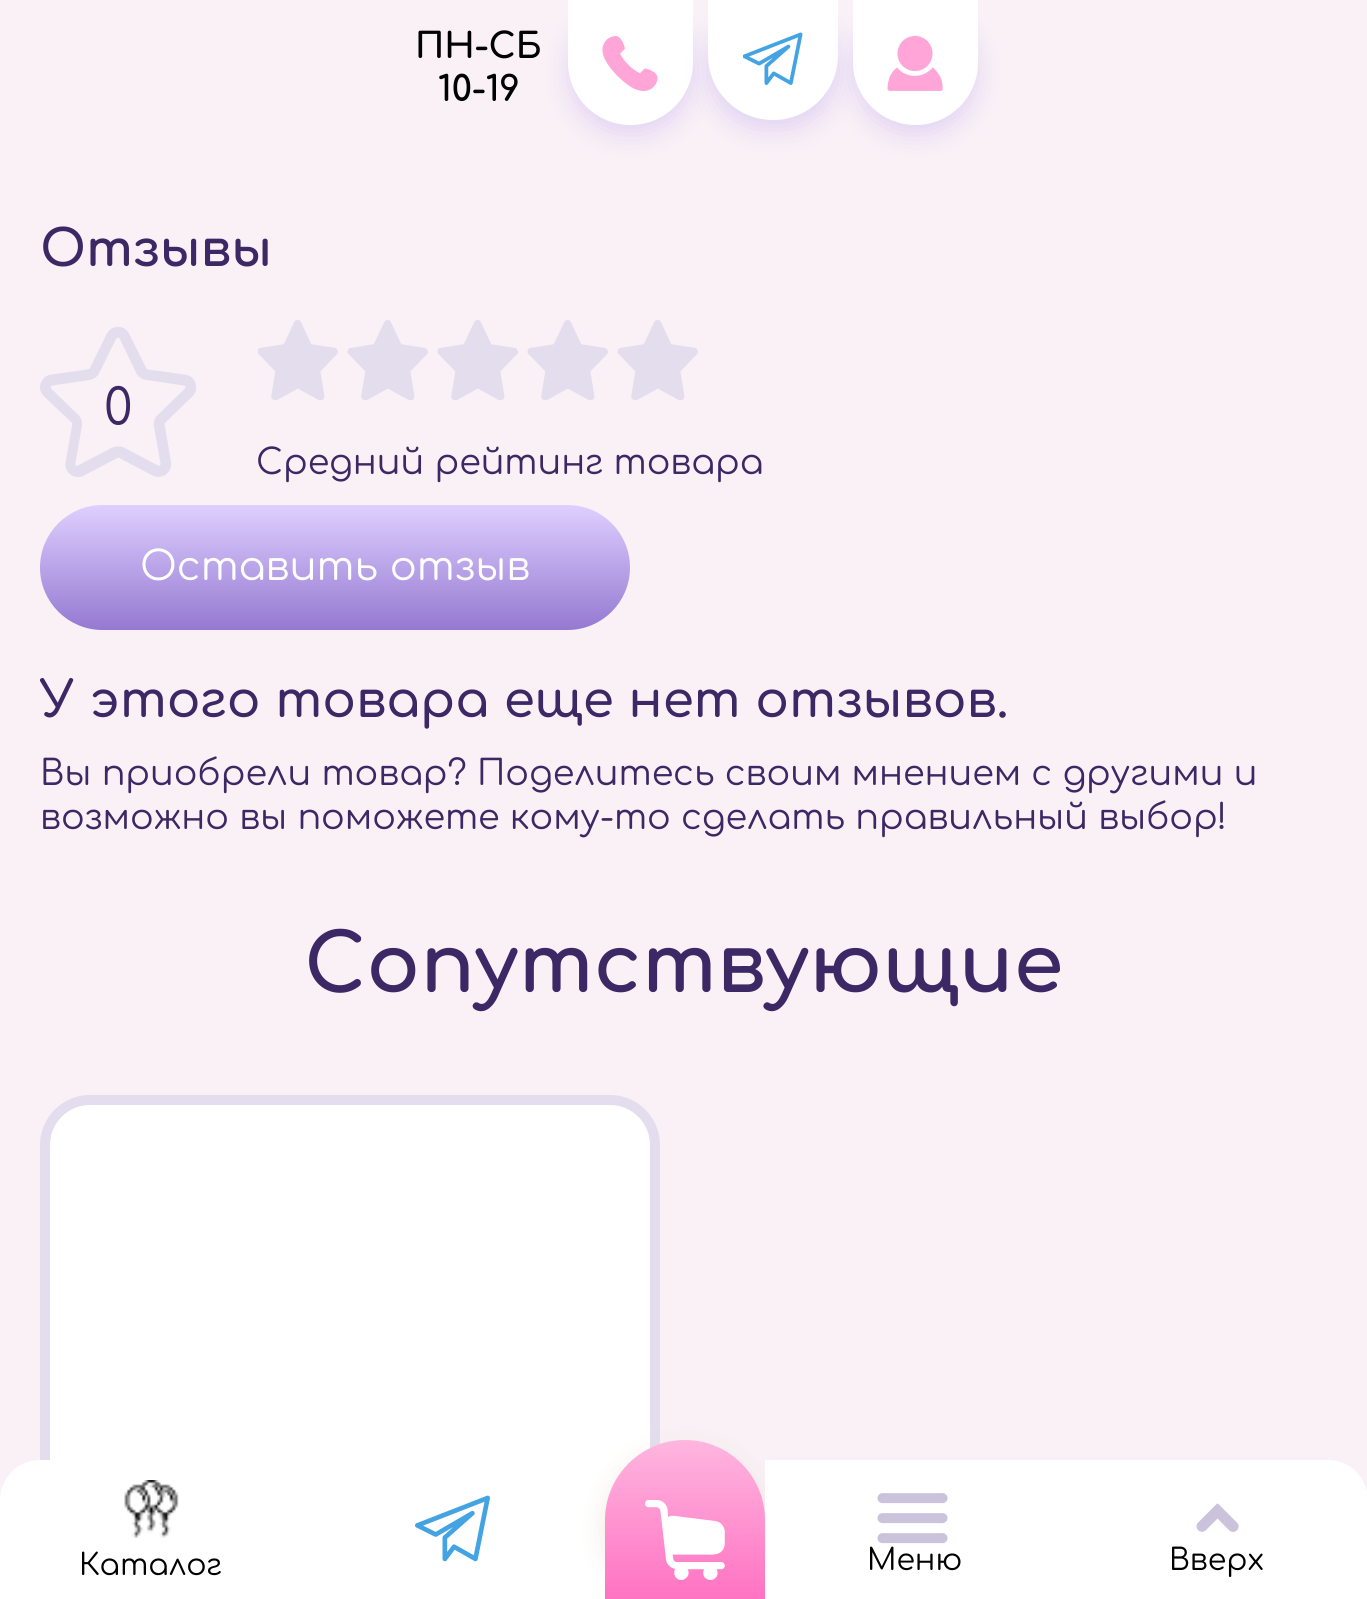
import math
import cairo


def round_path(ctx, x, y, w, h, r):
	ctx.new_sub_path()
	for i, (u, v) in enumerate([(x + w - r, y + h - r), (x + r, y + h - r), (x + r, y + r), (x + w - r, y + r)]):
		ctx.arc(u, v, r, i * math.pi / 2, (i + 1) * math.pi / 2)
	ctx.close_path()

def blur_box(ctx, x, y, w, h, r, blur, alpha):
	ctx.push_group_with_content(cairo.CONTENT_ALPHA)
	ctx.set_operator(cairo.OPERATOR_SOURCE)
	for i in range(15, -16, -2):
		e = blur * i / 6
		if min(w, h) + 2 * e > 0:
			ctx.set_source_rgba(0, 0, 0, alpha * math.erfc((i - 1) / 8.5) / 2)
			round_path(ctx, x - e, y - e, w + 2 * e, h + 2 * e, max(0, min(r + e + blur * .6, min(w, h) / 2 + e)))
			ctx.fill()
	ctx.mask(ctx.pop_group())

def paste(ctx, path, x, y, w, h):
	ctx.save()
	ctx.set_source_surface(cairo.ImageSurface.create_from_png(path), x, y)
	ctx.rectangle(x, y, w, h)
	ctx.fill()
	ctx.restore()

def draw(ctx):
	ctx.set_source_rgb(0.973, 0.945, 0.961)
	ctx.paint()
	ctx.select_font_face('Comfortaa', cairo.FONT_SLANT_NORMAL, cairo.FONT_WEIGHT_BOLD)
	ctx.set_font_size(35)
	ctx.set_source_rgb(0, 0, 0)
	ctx.move_to(415, 58)
	ctx.show_text('ПН-СБ')
	ctx.move_to(438, 101)
	ctx.show_text('10-19')
	ctx.set_source_rgb(0.682, 0.561, 0.929)
	blur_box(ctx, 568, 10, 125, 125, 62.5, 12.5, 0.3)
	ctx.set_source_rgb(1, 1, 1)
	ctx.new_path()
	ctx.move_to(568, 0)
	ctx.line_to(693, 0)
	ctx.line_to(693, 62.5)
	ctx.curve_to(693, 97, 665, 125, 630.5, 125)
	ctx.curve_to(596, 125, 568, 97, 568, 62.5)
	ctx.close_path()
	ctx.fill()
	paste(ctx, 'media/1.png', 602, 36, 56, 55)
	ctx.set_source_rgb(0.682, 0.561, 0.929)
	blur_box(ctx, 708, 10, 130, 120, 65, 12.5, 0.3)
	ctx.set_source_rgb(1, 1, 1)
	ctx.new_path()
	ctx.move_to(708, 0)
	ctx.line_to(838, 0)
	ctx.line_to(838, 55)
	ctx.curve_to(838, 91, 809, 120, 773, 120)
	ctx.curve_to(737, 120, 708, 91, 708, 55)
	ctx.close_path()
	ctx.fill()
	paste(ctx, 'media/2.png', 743, 32, 60, 53)
	ctx.set_source_rgb(0.682, 0.561, 0.929)
	blur_box(ctx, 853, 10, 125, 125, 62.5, 12.5, 0.3)
	ctx.set_source_rgb(1, 1, 1)
	ctx.new_path()
	ctx.move_to(853, 0)
	ctx.line_to(978, 0)
	ctx.line_to(978, 62.5)
	ctx.curve_to(978, 97, 950, 125, 915.5, 125)
	ctx.curve_to(881, 125, 853, 97, 853, 62.5)
	ctx.close_path()
	ctx.fill()
	paste(ctx, 'media/3.png', 887, 36, 56, 55)
	ctx.set_font_size(50)
	ctx.set_source_rgb(0.231, 0.157, 0.396)
	ctx.move_to(40, 266)
	ctx.show_text('Отзывы')
	paste(ctx, 'media/4.png', 40, 327, 156, 150)
	ctx.select_font_face('Comfortaa')
	ctx.move_to(104, 425)
	ctx.show_text('0')
	paste(ctx, 'media/5.png', 258, 320, 440, 80)
	ctx.set_font_size(35)
	ctx.move_to(256, 474)
	ctx.show_text('Средний рейтинг товара')
	gradient = cairo.LinearGradient(335, 505, 335, 630)
	gradient.add_color_stop_rgba(0, 0.871, 0.812, 1, 1)
	gradient.add_color_stop_rgba(1, 0.584, 0.475, 0.82, 1)
	ctx.set_source(gradient)
	round_path(ctx, 40, 505, 590, 125, 62.5)
	ctx.fill()
	ctx.set_font_size(40)
	ctx.set_source_rgb(1, 1, 1)
	ctx.move_to(140, 580)
	ctx.show_text('Оставить отзыв')
	ctx.select_font_face('Comfortaa SemiBold')
	ctx.set_font_size(50)
	ctx.set_source_rgb(0.231, 0.157, 0.396)
	ctx.move_to(40, 717)
	ctx.show_text('У этого товара еще нет отзывов.')
	ctx.select_font_face('Comfortaa')
	ctx.set_font_size(35)
	ctx.move_to(40, 785)
	ctx.show_text('Вы приобрели товар? Поделитесь своим мнением с другими и')
	ctx.move_to(40, 829)
	ctx.show_text('возможно вы поможете кому-то сделать правильный выбор!')
	ctx.select_font_face('Comfortaa', cairo.FONT_SLANT_NORMAL, cairo.FONT_WEIGHT_BOLD)
	ctx.set_font_size(80)
	ctx.move_to(304, 992)
	ctx.show_text('Сопутствующие')
	ctx.set_source_rgb(1, 1, 1)
	round_path(ctx, 45, 1100, 610, 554, 45)
	ctx.fill_preserve()
	ctx.set_source_rgb(0.89, 0.867, 0.933)
	ctx.set_line_width(10)
	ctx.stroke()
	ctx.set_source_rgb(1, 1, 1)
	ctx.new_path()
	ctx.move_to(40, 1460)
	ctx.line_to(303, 1460)
	ctx.line_to(303, 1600)
	ctx.line_to(0, 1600)
	ctx.line_to(0, 1500)
	ctx.curve_to(0, 1478, 18, 1460, 40, 1460)
	ctx.close_path()
	ctx.fill()
	paste(ctx, 'media/6.png', 124, 1480, 55, 58)
	ctx.select_font_face('Comfortaa')
	ctx.set_font_size(30)
	ctx.set_source_rgb(0, 0, 0)
	ctx.move_to(79, 1575)
	ctx.show_text('Каталог')
	paste(ctx, 'media/7.png', 415, 1495, 75, 67)
	ctx.set_source_rgb(0.847, 0.784, 0.714)
	blur_box(ctx, 605, 1450, 160, 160, 80, 12.5, 0.4)
	gradient = cairo.LinearGradient(685, 1440, 685, 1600)
	gradient.add_color_stop_rgba(0, 1, 0.714, 0.875, 1)
	gradient.add_color_stop_rgba(1, 1, 0.447, 0.761, 1)
	ctx.set_source(gradient)
	ctx.new_path()
	ctx.move_to(685, 1440)
	ctx.curve_to(729, 1440, 765, 1476, 765, 1520)
	ctx.line_to(765, 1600)
	ctx.line_to(605, 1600)
	ctx.line_to(605, 1520)
	ctx.curve_to(605, 1476, 641, 1440, 685, 1440)
	ctx.close_path()
	ctx.fill()
	paste(ctx, 'media/8.png', 645, 1500, 80, 80)
	ctx.set_source_rgb(1, 1, 1)
	ctx.rectangle(765, 1460, 300, 139)
	ctx.fill()
	paste(ctx, 'media/9.png', 877, 1493, 71, 51)
	ctx.set_source_rgb(0, 0, 0)
	ctx.move_to(867, 1570)
	ctx.show_text('Меню')
	ctx.set_source_rgb(1, 1, 1)
	ctx.new_path()
	ctx.move_to(1065, 1460)
	ctx.line_to(1328, 1460)
	ctx.curve_to(1350, 1460, 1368, 1478, 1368, 1500)
	ctx.line_to(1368, 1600)
	ctx.line_to(1065, 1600)
	ctx.close_path()
	ctx.fill()
	paste(ctx, 'media/10.png', 1196, 1503, 43, 29)
	ctx.set_source_rgb(0, 0, 0)
	ctx.move_to(1169, 1570)
	ctx.show_text('Вверх')


surface = cairo.ImageSurface(cairo.FORMAT_RGB24, 1367, 1599)
ctx = cairo.Context(surface)
options = cairo.FontOptions()
options.set_hint_metrics(cairo.HINT_METRICS_OFF)
options.set_hint_style(cairo.HINT_STYLE_NONE)
ctx.set_font_options(options)
ctx.set_miter_limit(4)
draw(ctx)
surface.write_to_png('image.png')
